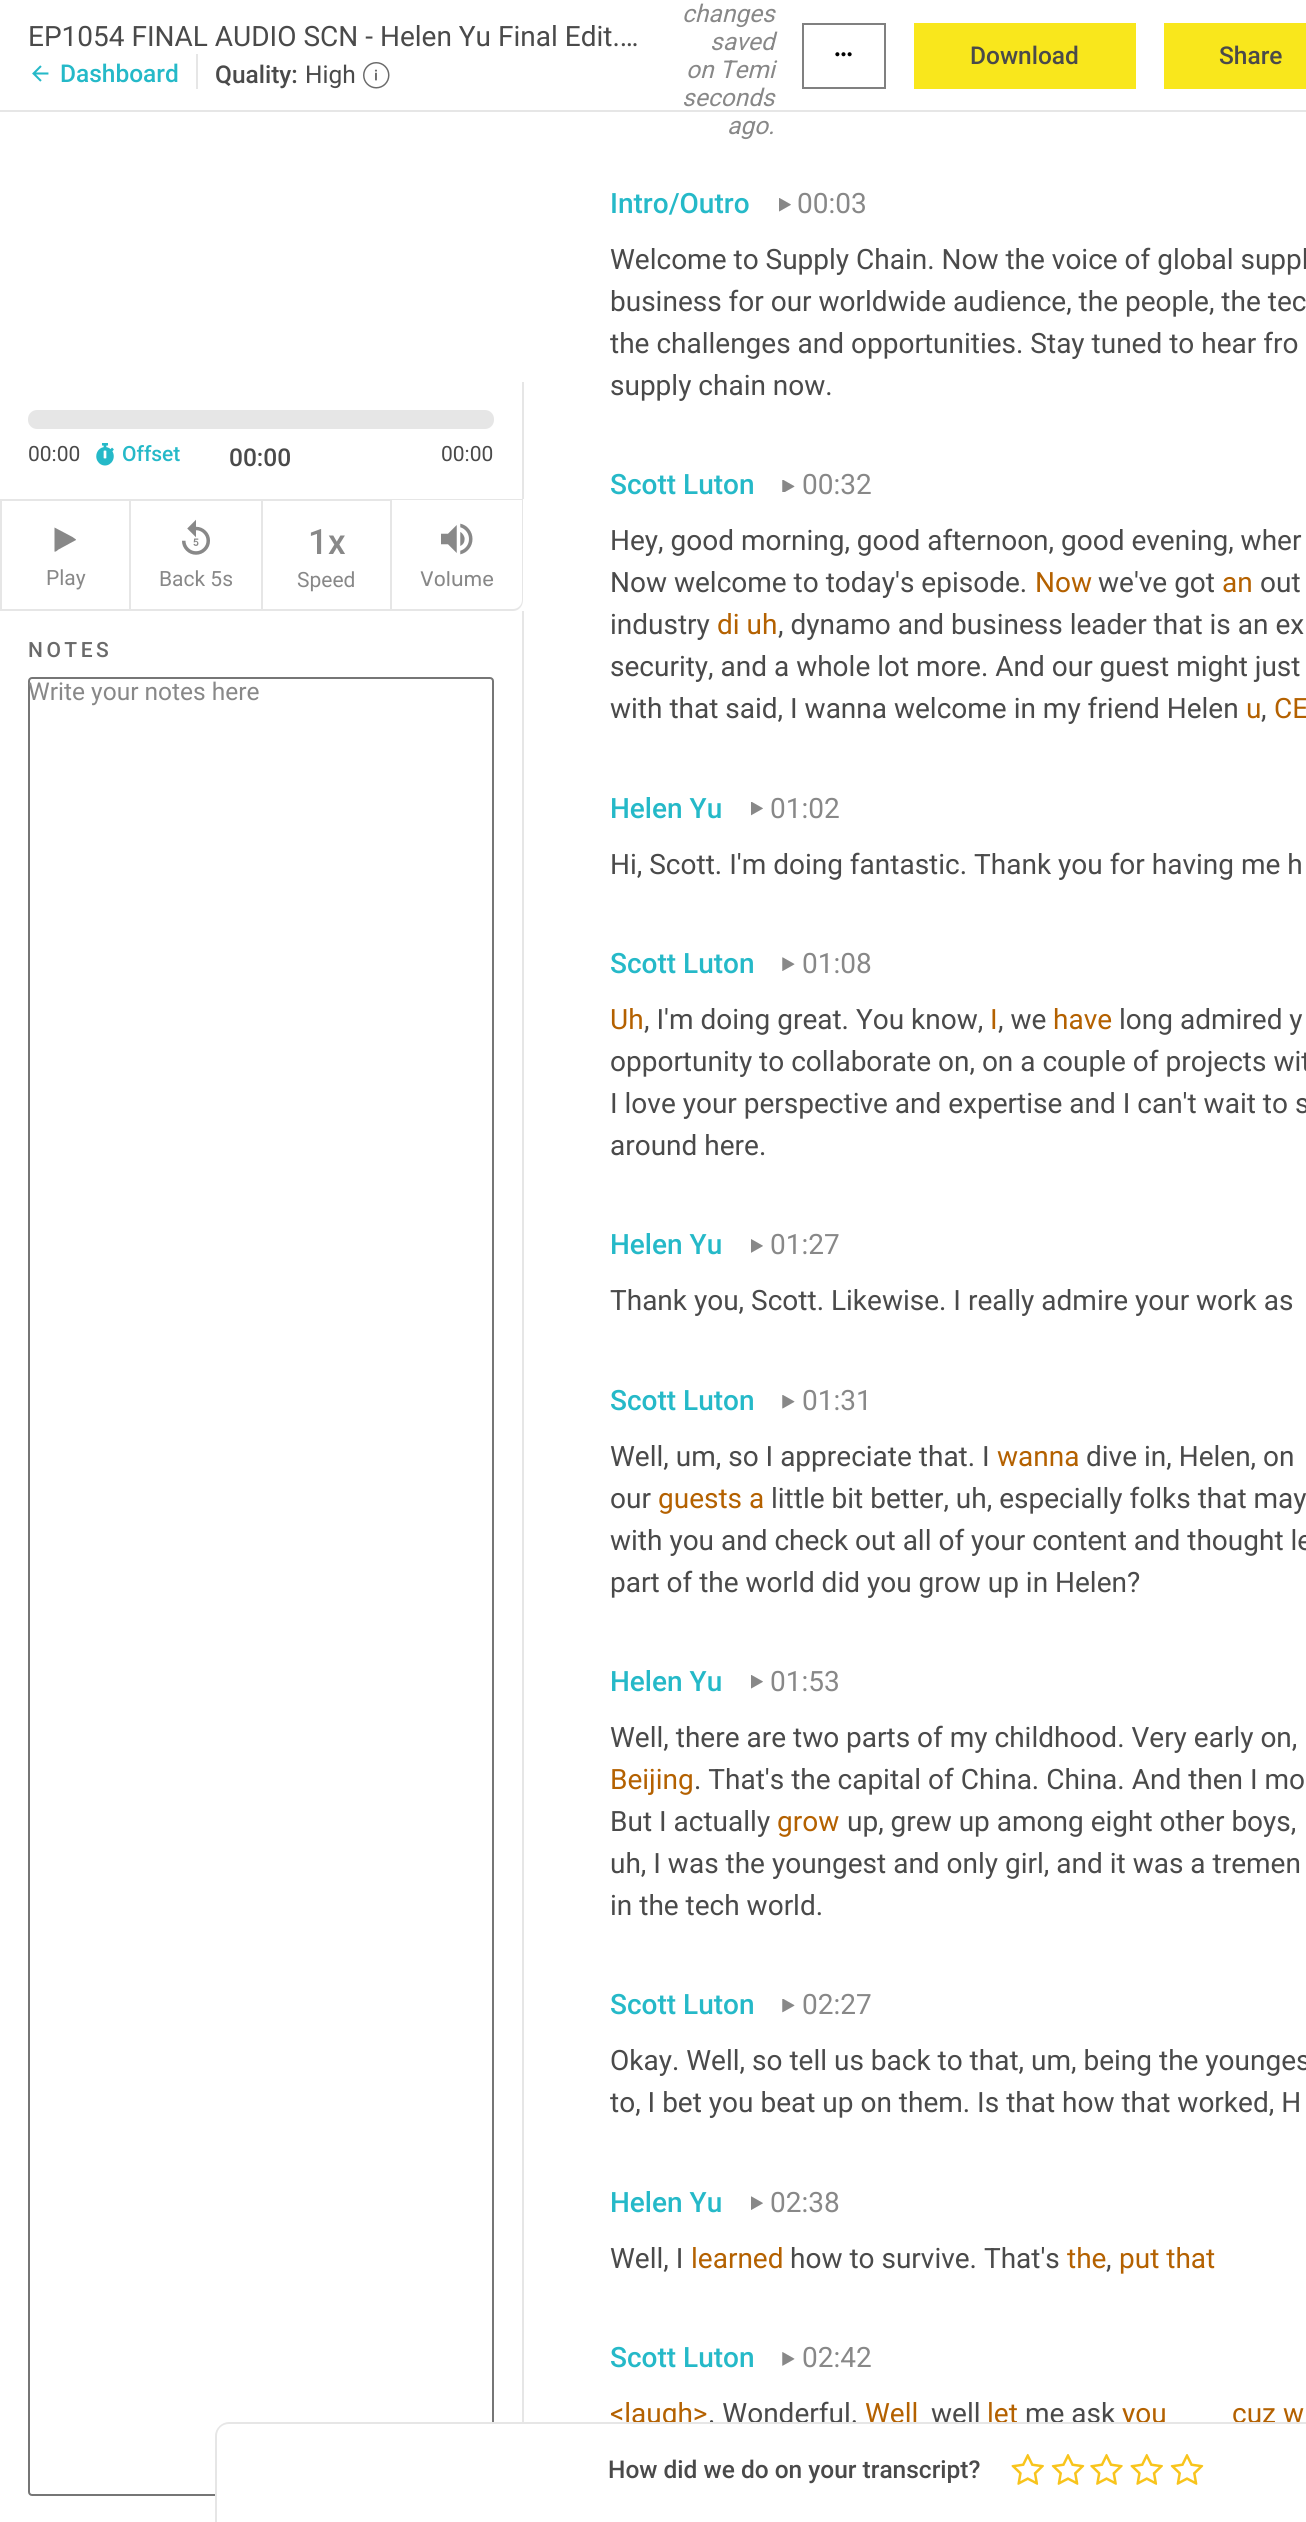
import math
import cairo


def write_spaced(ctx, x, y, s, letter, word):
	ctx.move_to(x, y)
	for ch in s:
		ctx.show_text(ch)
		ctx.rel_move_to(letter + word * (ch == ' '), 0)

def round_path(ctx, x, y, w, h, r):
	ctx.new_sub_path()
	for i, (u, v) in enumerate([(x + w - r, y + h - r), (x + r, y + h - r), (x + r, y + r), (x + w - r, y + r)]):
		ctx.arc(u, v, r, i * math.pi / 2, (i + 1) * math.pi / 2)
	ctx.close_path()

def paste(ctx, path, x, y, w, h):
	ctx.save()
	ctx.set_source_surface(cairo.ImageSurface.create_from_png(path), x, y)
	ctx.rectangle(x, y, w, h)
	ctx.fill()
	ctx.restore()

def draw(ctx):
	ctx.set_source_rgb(1, 1, 1)
	ctx.paint()
	ctx.set_source_rgb(0.902, 0.902, 0.902)
	ctx.rectangle(0, 110, 1306, 2)
	ctx.fill()
	ctx.select_font_face('Roboto')
	ctx.set_font_size(28)
	ctx.set_source_rgb(0.29, 0.29, 0.29)
	ctx.move_to(28, 46)
	ctx.show_text('EP1054 FINAL AUDIO SCN - Helen Yu Final Edit.…')
	paste(ctx, 'media/1.png', 32, 65, 17, 17)
	ctx.select_font_face('Roboto Medium')
	ctx.set_font_size(24.5)
	ctx.set_source_rgb(0.145, 0.725, 0.784)
	ctx.move_to(60, 82)
	ctx.show_text('Dashboard')
	ctx.set_source_rgb(0.902, 0.902, 0.902)
	ctx.rectangle(196, 54, 2, 35)
	ctx.fill()
	ctx.set_source_rgb(0.29, 0.29, 0.29)
	ctx.move_to(215, 83)
	ctx.show_text('Quality:')
	ctx.select_font_face('Roboto')
	ctx.move_to(305, 83)
	ctx.show_text('High')
	paste(ctx, 'media/2.png', 363, 62, 27, 27)
	ctx.select_font_face('Roboto', cairo.FONT_SLANT_ITALIC)
	ctx.set_source_rgb(0.533, 0.533, 0.533)
	for x, y, s in [
		(682, 22, 'changes'),
		(710, 50, 'saved'),
		(686, 78, 'on Temi'),
		(682, 106, 'seconds'),
		(727, 134, 'ago.'),
	]:
		ctx.move_to(x, y)
		ctx.show_text(s)
	ctx.rectangle(803, 24, 82, 64)
	ctx.set_source_rgb(0.502, 0.502, 0.502)
	ctx.stroke()
	paste(ctx, 'media/3.png', 835, 52, 17, 5)
	ctx.set_source_rgb(0.973, 0.906, 0.11)
	ctx.rectangle(914, 23, 222, 66)
	ctx.fill()
	ctx.select_font_face('Roboto Medium')
	ctx.set_source_rgb(0.29, 0.29, 0.29)
	ctx.move_to(970, 64)
	ctx.show_text('Download')
	ctx.set_source_rgb(0.973, 0.906, 0.11)
	ctx.rectangle(1164, 23, 142, 66)
	ctx.fill()
	ctx.set_source_rgb(0.29, 0.29, 0.29)
	ctx.move_to(1219, 64)
	ctx.show_text('Share')
	ctx.set_source_rgb(0.902, 0.902, 0.902)
	ctx.rectangle(522, 382, 2, 117)
	ctx.fill()
	round_path(ctx, 28, 410, 466, 19, 9)
	ctx.fill()
	ctx.select_font_face('Roboto')
	ctx.set_font_size(21)
	ctx.set_source_rgb(0.29, 0.29, 0.29)
	ctx.move_to(28, 461)
	ctx.show_text('00:00')
	paste(ctx, 'media/4.png', 96, 443, 18, 23)
	ctx.select_font_face('Roboto Medium')
	ctx.set_source_rgb(0.145, 0.725, 0.784)
	ctx.move_to(122, 461)
	ctx.show_text('Offset')
	ctx.set_font_size(24.5)
	ctx.set_source_rgb(0.29, 0.29, 0.29)
	ctx.move_to(229, 466)
	ctx.show_text('00:00')
	ctx.select_font_face('Roboto')
	ctx.set_font_size(21)
	ctx.move_to(441, 461)
	ctx.show_text('00:00')
	ctx.rectangle(1, 500, 129, 110)
	ctx.set_source_rgb(0.902, 0.902, 0.902)
	ctx.stroke()
	ctx.set_source_rgb(0.533, 0.533, 0.533)
	ctx.new_path()
	ctx.move_to(76, 540)
	ctx.line_to(58.5, 549.5)
	ctx.curve_to(58, 550, 55, 552.5, 54.5, 551.5)
	ctx.line_to(54.5, 527.5)
	ctx.line_to(72.5, 537)
	ctx.line_to(76, 539.5)
	ctx.close_path()
	ctx.fill()
	ctx.move_to(46, 585)
	ctx.show_text('Play')
	ctx.set_source_rgb(0.902, 0.902, 0.902)
	ctx.rectangle(131, 499, 261, 2)
	ctx.rectangle(261, 499, 2, 112)
	ctx.rectangle(131, 609, 132, 2)
	ctx.fill()
	paste(ctx, 'media/5.png', 182, 519, 28, 36)
	ctx.set_source_rgb(0.533, 0.533, 0.533)
	ctx.move_to(159, 586)
	ctx.show_text('Back 5s')
	ctx.set_source_rgb(0.902, 0.902, 0.902)
	ctx.rectangle(390, 499, 2, 112)
	ctx.fill()
	ctx.rectangle(263, 609, 129, 2)
	ctx.fill()
	ctx.select_font_face('Roboto Medium')
	ctx.set_font_size(35)
	ctx.set_source_rgb(0.533, 0.533, 0.533)
	ctx.move_to(308, 554)
	ctx.show_text('1x')
	ctx.select_font_face('Roboto')
	ctx.set_font_size(21)
	ctx.move_to(297, 587)
	ctx.show_text('Speed')
	ctx.set_source_rgb(0.902, 0.902, 0.902)
	ctx.set_fill_rule(cairo.FILL_RULE_EVEN_ODD)
	ctx.new_path()
	ctx.move_to(392, 499)
	ctx.line_to(523, 499)
	ctx.line_to(523, 600)
	ctx.curve_to(523, 606, 519, 611, 513, 611)
	ctx.line_to(392, 611)
	ctx.close_path()
	ctx.move_to(392, 500)
	ctx.line_to(522, 500)
	ctx.line_to(522, 600)
	ctx.curve_to(522, 605, 518, 609, 513, 609)
	ctx.line_to(392, 609)
	ctx.close_path()
	ctx.fill()
	paste(ctx, 'media/6.png', 441, 523, 32, 32)
	ctx.select_font_face('Rubik')
	ctx.set_source_rgb(0.533, 0.533, 0.533)
	ctx.move_to(420, 586)
	ctx.show_text('Volume')
	ctx.set_source_rgb(0.902, 0.902, 0.902)
	ctx.rectangle(522, 611, 2, 1811)
	ctx.fill()
	ctx.select_font_face('Roboto Medium')
	ctx.set_source_rgb(0.416, 0.416, 0.416)
	write_spaced(ctx, 28, 657, 'NOTES', 3.5, 0)
	round_path(ctx, 29, 678, 464, 1817, 3)
	ctx.set_source_rgb(0.463, 0.463, 0.463)
	ctx.stroke()
	ctx.select_font_face('Roboto')
	ctx.set_font_size(24.5)
	ctx.set_source_rgb(0.533, 0.533, 0.533)
	ctx.move_to(28, 700)
	ctx.show_text('Write your notes here')
	ctx.select_font_face('Roboto Medium')
	ctx.set_font_size(28)
	ctx.set_source_rgb(0.145, 0.725, 0.784)
	ctx.move_to(610, 213)
	ctx.show_text('Intro/Outro')
	paste(ctx, 'media/7.png', 779, 198, 12, 14)
	ctx.select_font_face('Roboto')
	ctx.set_source_rgb(0.533, 0.533, 0.533)
	ctx.move_to(797, 213)
	ctx.show_text('00:03')
	ctx.set_source_rgb(0.29, 0.29, 0.29)
	for x, y, s in [
		(610, 269, 'Welcome to Supply Chain. Now the voice of global suppl'),
		(610, 311, 'business for our worldwide audience, the people, the tec'),
		(610, 353, 'the challenges and opportunities. Stay tuned to hear fro'),
		(610, 395, 'supply chain now.'),
	]:
		ctx.move_to(x, y)
		ctx.show_text(s)
	ctx.select_font_face('Roboto Medium')
	ctx.set_source_rgb(0.145, 0.725, 0.784)
	ctx.move_to(610, 494)
	ctx.show_text('Scott Luton')
	paste(ctx, 'media/8.png', 782, 480, 13, 12)
	ctx.select_font_face('Roboto')
	ctx.set_source_rgb(0.533, 0.533, 0.533)
	ctx.move_to(802, 494)
	ctx.show_text('00:32')
	ctx.set_source_rgb(0.29, 0.29, 0.29)
	ctx.move_to(610, 550)
	ctx.show_text('Hey, good morning, good afternoon, good evening, wher')
	ctx.move_to(610, 592)
	ctx.show_text('Now welcome to today\'s episode.')
	ctx.set_source_rgb(0.706, 0.38, 0)
	ctx.move_to(1035, 592)
	ctx.show_text('Now')
	ctx.set_source_rgb(0.29, 0.29, 0.29)
	ctx.move_to(1098, 592)
	ctx.show_text('we\'ve got')
	ctx.set_source_rgb(0.706, 0.38, 0)
	ctx.move_to(1222, 592)
	ctx.show_text('an')
	ctx.set_source_rgb(0.29, 0.29, 0.29)
	ctx.move_to(1260, 592)
	ctx.show_text('out')
	ctx.move_to(610, 634)
	ctx.show_text('industry')
	ctx.set_source_rgb(0.706, 0.38, 0)
	ctx.move_to(717, 634)
	ctx.show_text('di uh')
	ctx.set_source_rgb(0.29, 0.29, 0.29)
	for x, y, s in [
		(778, 634, ', dynamo and business leader that is an ex'),
		(610, 676, 'security, and a whole lot more. And our guest might just'),
		(610, 718, 'with that said, I wanna welcome in my friend Helen'),
	]:
		ctx.move_to(x, y)
		ctx.show_text(s)
	ctx.set_source_rgb(0.706, 0.38, 0)
	ctx.move_to(1246, 718)
	ctx.show_text('u')
	ctx.set_source_rgb(0.29, 0.29, 0.29)
	ctx.move_to(1261, 718)
	ctx.show_text(',')
	ctx.set_source_rgb(0.706, 0.38, 0)
	ctx.move_to(1274, 718)
	ctx.show_text('CE')
	ctx.select_font_face('Roboto Medium')
	ctx.set_source_rgb(0.145, 0.725, 0.784)
	ctx.move_to(610, 818)
	ctx.show_text('Helen Yu')
	paste(ctx, 'media/9.png', 751, 802, 12, 14)
	ctx.select_font_face('Roboto')
	ctx.set_source_rgb(0.533, 0.533, 0.533)
	ctx.move_to(770, 818)
	ctx.show_text('01:02')
	ctx.set_source_rgb(0.29, 0.29, 0.29)
	ctx.move_to(610, 874)
	ctx.show_text('Hi, Scott. I\'m doing fantastic. Thank you for having me h')
	ctx.select_font_face('Roboto Medium')
	ctx.set_source_rgb(0.145, 0.725, 0.784)
	ctx.move_to(610, 973)
	ctx.show_text('Scott Luton')
	paste(ctx, 'media/10.png', 782, 957, 13, 14)
	ctx.select_font_face('Roboto')
	ctx.set_source_rgb(0.533, 0.533, 0.533)
	ctx.move_to(802, 973)
	ctx.show_text('01:08')
	ctx.set_source_rgb(0.706, 0.38, 0)
	ctx.move_to(610, 1029)
	ctx.show_text('Uh')
	ctx.set_source_rgb(0.29, 0.29, 0.29)
	ctx.move_to(644, 1029)
	ctx.show_text(', I\'m doing great. You know,')
	ctx.set_source_rgb(0.706, 0.38, 0)
	ctx.move_to(990, 1029)
	ctx.show_text('I')
	ctx.set_source_rgb(0.29, 0.29, 0.29)
	ctx.move_to(998, 1029)
	ctx.show_text(', we')
	ctx.set_source_rgb(0.706, 0.38, 0)
	ctx.move_to(1053, 1029)
	ctx.show_text('have')
	ctx.set_source_rgb(0.29, 0.29, 0.29)
	for x, y, s in [
		(1119, 1029, 'long admired y'),
		(610, 1071, 'opportunity to collaborate on, on a couple of projects wit'),
		(610, 1113, 'I love your perspective and expertise and I can\'t wait to s'),
		(610, 1155, 'around here.'),
	]:
		ctx.move_to(x, y)
		ctx.show_text(s)
	ctx.select_font_face('Roboto Medium')
	ctx.set_source_rgb(0.145, 0.725, 0.784)
	ctx.move_to(610, 1254)
	ctx.show_text('Helen Yu')
	paste(ctx, 'media/11.png', 751, 1239, 12, 14)
	ctx.select_font_face('Roboto')
	ctx.set_source_rgb(0.533, 0.533, 0.533)
	ctx.move_to(770, 1254)
	ctx.show_text('01:27')
	ctx.set_source_rgb(0.29, 0.29, 0.29)
	ctx.move_to(610, 1310)
	ctx.show_text('Thank you, Scott. Likewise. I really admire your work as')
	ctx.select_font_face('Roboto Medium')
	ctx.set_source_rgb(0.145, 0.725, 0.784)
	ctx.move_to(610, 1410)
	ctx.show_text('Scott Luton')
	paste(ctx, 'media/12.png', 782, 1395, 13, 14)
	ctx.select_font_face('Roboto')
	ctx.set_source_rgb(0.533, 0.533, 0.533)
	ctx.move_to(802, 1410)
	ctx.show_text('01:31')
	ctx.set_source_rgb(0.29, 0.29, 0.29)
	ctx.move_to(610, 1466)
	ctx.show_text('Well, um, so I appreciate that. I')
	ctx.set_source_rgb(0.706, 0.38, 0)
	ctx.move_to(997, 1466)
	ctx.show_text('wanna')
	ctx.set_source_rgb(0.29, 0.29, 0.29)
	ctx.move_to(1086, 1466)
	ctx.show_text('dive in, Helen, on')
	ctx.move_to(610, 1508)
	ctx.show_text('our')
	ctx.set_source_rgb(0.706, 0.38, 0)
	ctx.move_to(658, 1508)
	ctx.show_text('guests a')
	ctx.set_source_rgb(0.29, 0.29, 0.29)
	for x, y, s in [
		(771, 1508, 'little bit better, uh, especially folks that may'),
		(610, 1550, 'with you and check out all of your content and thought le'),
		(610, 1592, 'part of the world did you grow up in Helen?'),
	]:
		ctx.move_to(x, y)
		ctx.show_text(s)
	ctx.select_font_face('Roboto Medium')
	ctx.set_source_rgb(0.145, 0.725, 0.784)
	ctx.move_to(610, 1691)
	ctx.show_text('Helen Yu')
	paste(ctx, 'media/7.png', 751, 1675, 12, 14)
	ctx.select_font_face('Roboto')
	ctx.set_source_rgb(0.533, 0.533, 0.533)
	ctx.move_to(770, 1691)
	ctx.show_text('01:53')
	ctx.set_source_rgb(0.29, 0.29, 0.29)
	ctx.move_to(610, 1747)
	ctx.show_text('Well, there are two parts of my childhood. Very early on,')
	ctx.set_source_rgb(0.706, 0.38, 0)
	ctx.move_to(610, 1789)
	ctx.show_text('Beijing')
	ctx.set_source_rgb(0.29, 0.29, 0.29)
	ctx.move_to(694, 1789)
	ctx.show_text('. That\'s the capital of China. China. And then I mo')
	ctx.move_to(610, 1831)
	ctx.show_text('But I actually')
	ctx.set_source_rgb(0.706, 0.38, 0)
	ctx.move_to(777, 1831)
	ctx.show_text('grow')
	ctx.set_source_rgb(0.29, 0.29, 0.29)
	for x, y, s in [
		(847, 1831, 'up, grew up among eight other boys,'),
		(610, 1873, 'uh, I was the youngest and only girl, and it was a tremen'),
		(610, 1915, 'in the tech world.'),
	]:
		ctx.move_to(x, y)
		ctx.show_text(s)
	ctx.select_font_face('Roboto Medium')
	ctx.set_source_rgb(0.145, 0.725, 0.784)
	ctx.move_to(610, 2014)
	ctx.show_text('Scott Luton')
	paste(ctx, 'media/13.png', 782, 1999, 13, 14)
	ctx.select_font_face('Roboto')
	ctx.set_source_rgb(0.533, 0.533, 0.533)
	ctx.move_to(802, 2014)
	ctx.show_text('02:27')
	ctx.set_source_rgb(0.29, 0.29, 0.29)
	ctx.move_to(610, 2070)
	ctx.show_text('Okay. Well, so tell us back to that, um, being the younges')
	ctx.move_to(610, 2112)
	ctx.show_text('to, I bet you beat up on them. Is that how that worked, H')
	ctx.select_font_face('Roboto Medium')
	ctx.set_source_rgb(0.145, 0.725, 0.784)
	ctx.move_to(610, 2212)
	ctx.show_text('Helen Yu')
	paste(ctx, 'media/14.png', 751, 2196, 12, 14)
	ctx.select_font_face('Roboto')
	ctx.set_source_rgb(0.533, 0.533, 0.533)
	ctx.move_to(770, 2212)
	ctx.show_text('02:38')
	ctx.set_source_rgb(0.29, 0.29, 0.29)
	ctx.move_to(610, 2268)
	ctx.show_text('Well, I')
	ctx.set_source_rgb(0.706, 0.38, 0)
	ctx.move_to(691, 2268)
	ctx.show_text('learned')
	ctx.set_source_rgb(0.29, 0.29, 0.29)
	ctx.move_to(790, 2268)
	ctx.show_text('how to survive. That\'s')
	ctx.set_source_rgb(0.706, 0.38, 0)
	ctx.move_to(1067, 2268)
	ctx.show_text('the')
	ctx.set_source_rgb(0.29, 0.29, 0.29)
	ctx.move_to(1106, 2268)
	ctx.show_text(',')
	ctx.set_source_rgb(0.706, 0.38, 0)
	ctx.move_to(1119, 2268)
	ctx.show_text('put that')
	ctx.select_font_face('Roboto Medium')
	ctx.set_source_rgb(0.145, 0.725, 0.784)
	ctx.move_to(610, 2367)
	ctx.show_text('Scott Luton')
	paste(ctx, 'media/15.png', 782, 2352, 13, 14)
	ctx.select_font_face('Roboto')
	ctx.set_source_rgb(0.533, 0.533, 0.533)
	ctx.move_to(802, 2367)
	ctx.show_text('02:42')
	ctx.set_source_rgb(0.706, 0.38, 0)
	ctx.move_to(610, 2423)
	ctx.show_text('<laugh>')
	ctx.set_source_rgb(0.29, 0.29, 0.29)
	ctx.move_to(708, 2423)
	ctx.show_text('. Wonderful.')
	ctx.set_source_rgb(0.706, 0.38, 0)
	ctx.move_to(865, 2423)
	ctx.show_text('Well')
	ctx.set_source_rgb(0.29, 0.29, 0.29)
	ctx.move_to(931, 2423)
	ctx.show_text('well')
	ctx.set_source_rgb(0.706, 0.38, 0)
	ctx.move_to(987, 2423)
	ctx.show_text('let')
	ctx.set_source_rgb(0.29, 0.29, 0.29)
	ctx.move_to(1025, 2423)
	ctx.show_text('me ask')
	ctx.set_source_rgb(0.706, 0.38, 0)
	ctx.move_to(1122, 2423)
	ctx.show_text('you')
	ctx.move_to(1232, 2423)
	ctx.show_text('cuz w')
	ctx.set_source_rgb(1, 1, 1)
	ctx.new_path()
	ctx.move_to(229, 2424)
	ctx.line_to(1306, 2424)
	ctx.curve_to(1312.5, 2424, 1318, 2429.5, 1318, 2436)
	ctx.line_to(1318, 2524)
	ctx.line_to(217, 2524)
	ctx.line_to(217, 2436)
	ctx.curve_to(217, 2429.5, 222.5, 2424, 229, 2424)
	ctx.close_path()
	ctx.fill()
	ctx.set_source_rgb(0.902, 0.902, 0.902)
	ctx.new_path()
	ctx.move_to(229, 2422)
	ctx.line_to(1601, 2422)
	ctx.curve_to(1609, 2422, 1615, 2428, 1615, 2436)
	ctx.line_to(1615, 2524)
	ctx.line_to(215, 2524)
	ctx.line_to(215, 2436)
	ctx.curve_to(215, 2428, 222, 2422, 229, 2422)
	ctx.close_path()
	ctx.move_to(229, 2424)
	ctx.line_to(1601, 2424)
	ctx.curve_to(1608, 2424, 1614, 2429, 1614, 2436)
	ctx.line_to(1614, 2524)
	ctx.line_to(217, 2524)
	ctx.line_to(217, 2436)
	ctx.curve_to(217, 2429, 222, 2424, 229, 2424)
	ctx.close_path()
	ctx.fill()
	ctx.select_font_face('Roboto Medium')
	ctx.set_font_size(24.5)
	ctx.set_source_rgb(0.29, 0.29, 0.29)
	ctx.move_to(608, 2478)
	ctx.show_text('How did we do on your transcript?')
	paste(ctx, 'media/16.png', 1011, 2453, 33, 32)
	paste(ctx, 'media/17.png', 1051, 2454, 34, 31)
	paste(ctx, 'media/18.png', 1090, 2453, 33, 32)
	paste(ctx, 'media/16.png', 1130, 2453, 33, 32)
	paste(ctx, 'media/17.png', 1170, 2454, 34, 31)


surface = cairo.ImageSurface(cairo.FORMAT_RGB24, 1306, 2522)
ctx = cairo.Context(surface)
options = cairo.FontOptions()
options.set_hint_metrics(cairo.HINT_METRICS_OFF)
options.set_hint_style(cairo.HINT_STYLE_NONE)
ctx.set_font_options(options)
ctx.set_miter_limit(4)
draw(ctx)
surface.write_to_png('image.png')
